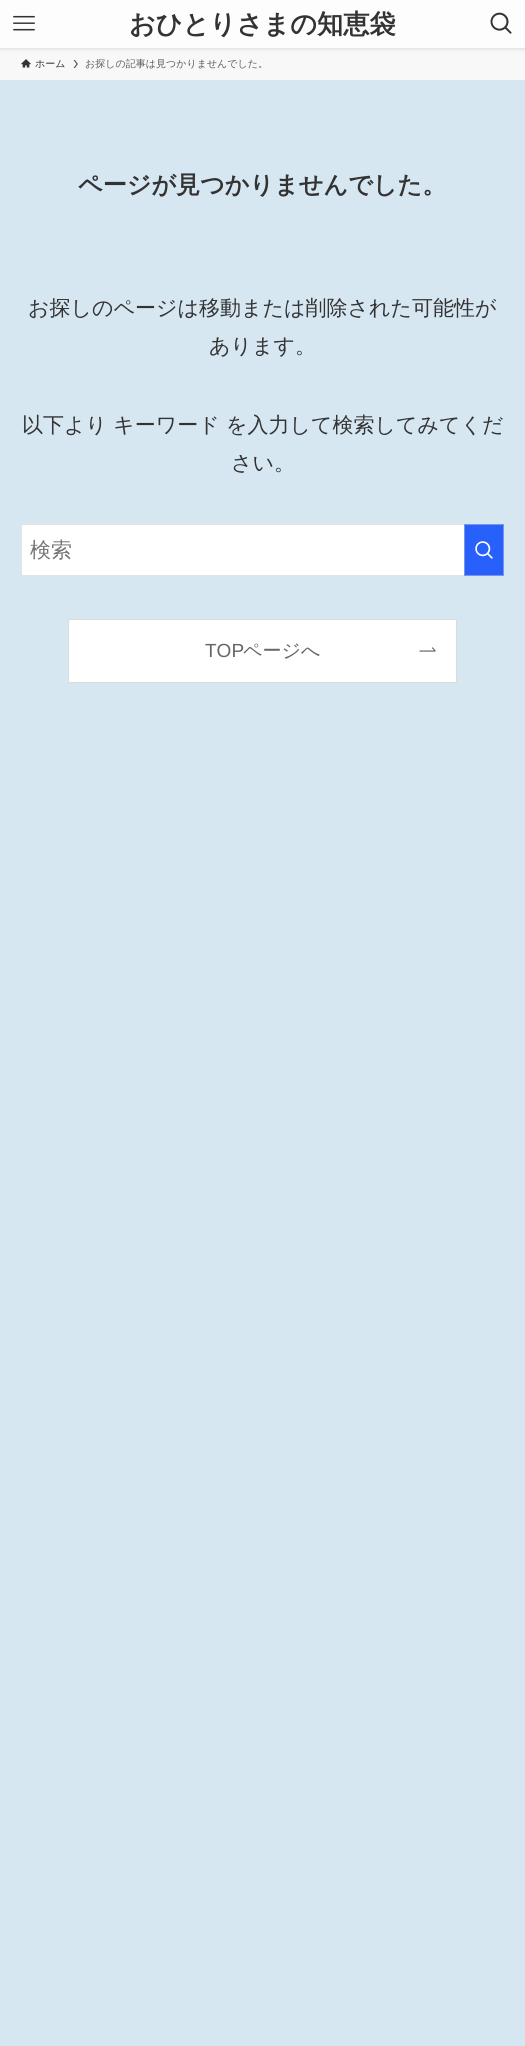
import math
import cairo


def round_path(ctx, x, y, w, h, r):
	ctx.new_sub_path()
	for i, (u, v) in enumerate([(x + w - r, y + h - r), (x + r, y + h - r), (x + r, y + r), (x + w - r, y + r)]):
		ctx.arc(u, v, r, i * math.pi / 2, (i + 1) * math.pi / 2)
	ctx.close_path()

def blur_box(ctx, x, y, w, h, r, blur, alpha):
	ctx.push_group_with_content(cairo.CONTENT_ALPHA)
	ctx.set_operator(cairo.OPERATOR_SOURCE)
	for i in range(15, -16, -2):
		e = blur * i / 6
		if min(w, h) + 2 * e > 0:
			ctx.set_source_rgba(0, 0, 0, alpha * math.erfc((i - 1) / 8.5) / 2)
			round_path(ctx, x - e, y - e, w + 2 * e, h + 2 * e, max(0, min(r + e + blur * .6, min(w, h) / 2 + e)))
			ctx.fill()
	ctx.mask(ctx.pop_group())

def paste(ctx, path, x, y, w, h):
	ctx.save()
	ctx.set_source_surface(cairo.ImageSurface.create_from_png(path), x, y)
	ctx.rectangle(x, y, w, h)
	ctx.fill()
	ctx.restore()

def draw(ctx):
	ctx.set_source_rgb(0.843, 0.906, 0.949)
	ctx.paint()
	ctx.set_source_rgb(0.969, 0.969, 0.969)
	ctx.rectangle(0, 48, 525, 32)
	ctx.fill()
	ctx.set_source_rgb(0, 0, 0)
	blur_box(ctx, 0, 1, 525, 48, 0, 2, 0.12)
	ctx.set_source_rgb(0.992, 0.992, 0.992)
	ctx.rectangle(0, 0, 525, 48)
	ctx.fill()
	paste(ctx, 'media/1.png', 13, 15, 22, 16)
	ctx.select_font_face('WenQuanYi Zen Hei', cairo.FONT_SLANT_NORMAL, cairo.FONT_WEIGHT_BOLD)
	ctx.set_font_size(26.25)
	ctx.set_source_rgb(0.2, 0.2, 0.2)
	ctx.move_to(129, 33)
	ctx.show_text('おひとりさまの知恵袋')
	paste(ctx, 'media/2.png', 490, 12, 22, 22)
	paste(ctx, 'media/3.png', 21, 59, 10, 9)
	ctx.select_font_face('WenQuanYi Zen Hei Medium')
	ctx.set_font_size(10)
	ctx.move_to(35, 67)
	ctx.show_text('ホーム')
	ctx.set_source_rgb(0.353, 0.353, 0.353)
	ctx.new_path()
	ctx.move_to(75, 60)
	ctx.line_to(73.5, 60)
	ctx.line_to(76.5, 64)
	ctx.line_to(73.5, 68)
	ctx.line_to(75, 68)
	ctx.line_to(78, 64)
	ctx.close_path()
	ctx.fill()
	ctx.move_to(85, 67)
	ctx.show_text('お探しの記事は見つかりませんでした。')
	ctx.select_font_face('WenQuanYi Zen Hei', cairo.FONT_SLANT_NORMAL, cairo.FONT_WEIGHT_BOLD)
	ctx.set_font_size(24.1)
	ctx.set_source_rgb(0.2, 0.2, 0.2)
	ctx.move_to(78, 193)
	ctx.show_text('ページが見つかりませんでした。')
	ctx.select_font_face('WenQuanYi Zen Hei Medium')
	ctx.set_font_size(21)
	for x, y, s in [
		(28, 315, 'お探しのページは移動または削除された可能性が'),
		(209, 353, 'あります。'),
		(22, 432, '以下より キーワード を入力して検索してみてくだ'),
		(231, 470, 'さい。'),
	]:
		ctx.move_to(x, y)
		ctx.show_text(s)
	ctx.set_source_rgb(1, 1, 1)
	ctx.rectangle(22, 525, 442, 50)
	ctx.fill()
	ctx.rectangle(21.5, 524.5, 482, 51)
	ctx.set_source_rgb(0.89, 0.89, 0.89)
	ctx.set_line_width(1)
	ctx.stroke()
	ctx.set_source_rgb(0.459, 0.459, 0.459)
	ctx.move_to(30, 557)
	ctx.show_text('検索')
	ctx.set_source_rgb(0.157, 0.376, 0.988)
	ctx.rectangle(464.5, 524.5, 39, 51)
	ctx.fill_preserve()
	ctx.set_source_rgb(0.471, 0.58, 0.886)
	ctx.stroke()
	paste(ctx, 'media/4.png', 475, 541, 18, 18)
	ctx.rectangle(68.5, 619.5, 388, 63)
	ctx.set_source_rgb(0.863, 0.863, 0.863)
	ctx.stroke()
	ctx.set_source_rgb(1, 1, 1)
	ctx.rectangle(69, 620, 387, 62)
	ctx.fill()
	ctx.select_font_face('Liberation Sans')
	ctx.set_font_size(19)
	ctx.set_source_rgb(0.4, 0.4, 0.4)
	ctx.move_to(205, 657)
	ctx.show_text('TOP')
	ctx.select_font_face('WenQuanYi Zen Hei Medium')
	ctx.move_to(243, 657)
	ctx.show_text('ページへ')
	paste(ctx, 'media/5.png', 419, 647, 17, 5)


surface = cairo.ImageSurface(cairo.FORMAT_RGB24, 525, 2046)
ctx = cairo.Context(surface)
options = cairo.FontOptions()
options.set_hint_metrics(cairo.HINT_METRICS_OFF)
options.set_hint_style(cairo.HINT_STYLE_NONE)
ctx.set_font_options(options)
ctx.set_miter_limit(4)
draw(ctx)
surface.write_to_png('image.png')
